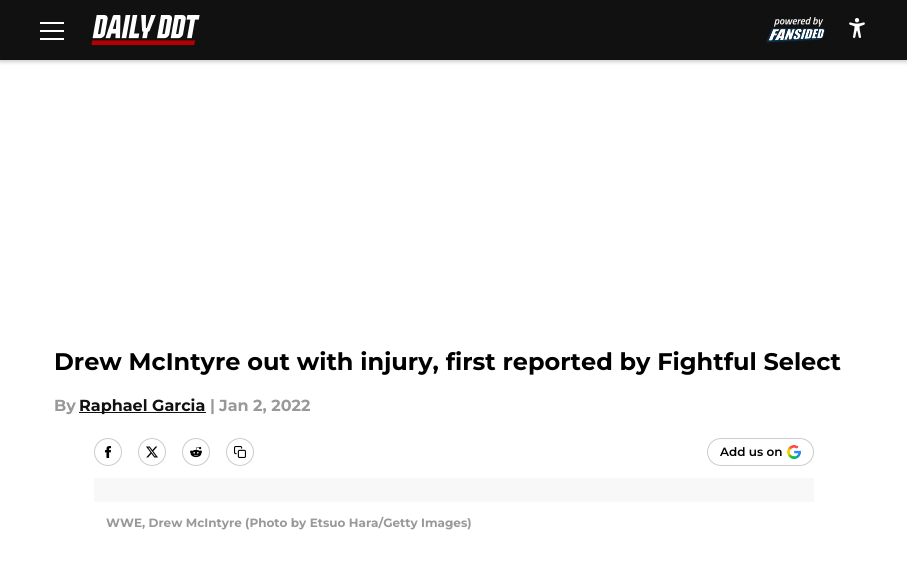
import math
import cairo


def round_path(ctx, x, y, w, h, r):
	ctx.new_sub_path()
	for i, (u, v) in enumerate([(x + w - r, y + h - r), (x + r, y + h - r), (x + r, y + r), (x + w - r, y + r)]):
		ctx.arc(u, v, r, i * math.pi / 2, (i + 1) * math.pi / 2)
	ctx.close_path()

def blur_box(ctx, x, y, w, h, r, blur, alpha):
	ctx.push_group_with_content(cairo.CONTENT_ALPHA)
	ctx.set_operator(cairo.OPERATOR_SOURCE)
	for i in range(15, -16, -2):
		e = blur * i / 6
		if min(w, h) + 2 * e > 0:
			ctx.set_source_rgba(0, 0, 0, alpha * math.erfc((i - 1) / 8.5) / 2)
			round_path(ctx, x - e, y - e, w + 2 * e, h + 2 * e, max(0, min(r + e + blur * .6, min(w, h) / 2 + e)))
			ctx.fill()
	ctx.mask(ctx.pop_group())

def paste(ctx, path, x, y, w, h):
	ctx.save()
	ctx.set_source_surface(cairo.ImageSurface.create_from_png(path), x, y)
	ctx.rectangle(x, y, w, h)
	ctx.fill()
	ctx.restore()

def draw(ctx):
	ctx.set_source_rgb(1, 1, 1)
	ctx.paint()
	ctx.set_source_rgb(0, 0, 0)
	blur_box(ctx, 0, 2, 907, 60, 0, 2, 0.2)
	ctx.set_source_rgb(0.067, 0.067, 0.067)
	ctx.rectangle(0, 0, 907, 60)
	ctx.fill()
	ctx.set_source_rgb(1, 1, 1)
	ctx.rectangle(40, 22, 24, 2)
	ctx.rectangle(40, 30, 24, 2)
	ctx.rectangle(40, 38, 24, 2)
	ctx.fill()
	paste(ctx, 'media/1.png', 91, 15, 109, 30)
	paste(ctx, 'media/2.png', 766, 17, 59, 26)
	paste(ctx, 'media/3.png', 849, 18, 16, 20)
	ctx.select_font_face('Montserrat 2 Thin')
	ctx.set_font_size(24)
	ctx.set_source_rgb(0, 0, 0)
	ctx.move_to(54, 370)
	ctx.show_text('Drew McIntyre out with injury, first reported by Fightful Select')
	ctx.set_font_size(16)
	ctx.set_source_rgb(0.6, 0.6, 0.6)
	ctx.move_to(54, 411)
	ctx.show_text('By')
	ctx.set_source_rgb(0.067, 0.067, 0.067)
	ctx.rectangle(79, 412, 127, 1)
	ctx.fill()
	ctx.move_to(79, 411)
	ctx.show_text('Raphael Garcia')
	ctx.set_source_rgb(0.6, 0.6, 0.6)
	ctx.move_to(210, 411)
	ctx.show_text('|')
	ctx.move_to(219, 411)
	ctx.show_text('Jan 2, 2022')
	ctx.new_path()
	ctx.arc(108, 452, 13.5, 0, 2 * math.pi)
	ctx.set_source_rgb(0.8, 0.8, 0.8)
	ctx.set_line_width(1)
	ctx.stroke()
	paste(ctx, 'media/4.png', 104, 446, 8, 12)
	ctx.arc(152, 452, 13.5, 0, 2 * math.pi)
	ctx.stroke()
	paste(ctx, 'media/5.png', 146, 446, 12, 12)
	ctx.arc(196, 452, 13.5, 0, 2 * math.pi)
	ctx.stroke()
	paste(ctx, 'media/6.png', 190, 446, 12, 12)
	ctx.arc(240, 452, 13.5, 0, 2 * math.pi)
	ctx.stroke()
	paste(ctx, 'media/7.png', 234, 446, 12, 12)
	round_path(ctx, 707.5, 438.5, 106, 27, 13.5)
	ctx.stroke()
	ctx.select_font_face('Montserrat Thin')
	ctx.set_font_size(12)
	ctx.set_source_rgb(0, 0, 0)
	ctx.move_to(720, 456)
	ctx.show_text('Add us on')
	paste(ctx, 'media/8.png', 787, 445, 14, 14)
	ctx.set_source_rgb(0.969, 0.969, 0.969)
	ctx.rectangle(94, 478, 720, 24)
	ctx.fill()
	ctx.select_font_face('Montserrat 2 Thin')
	ctx.set_source_rgb(0.6, 0.6, 0.6)
	ctx.move_to(106, 527)
	ctx.show_text('WWE, Drew McIntyre (Photo by Etsuo Hara/Getty Images)')


surface = cairo.ImageSurface(cairo.FORMAT_RGB24, 907, 564)
ctx = cairo.Context(surface)
options = cairo.FontOptions()
options.set_hint_metrics(cairo.HINT_METRICS_OFF)
options.set_hint_style(cairo.HINT_STYLE_NONE)
ctx.set_font_options(options)
ctx.set_miter_limit(4)
draw(ctx)
surface.write_to_png('image.png')
